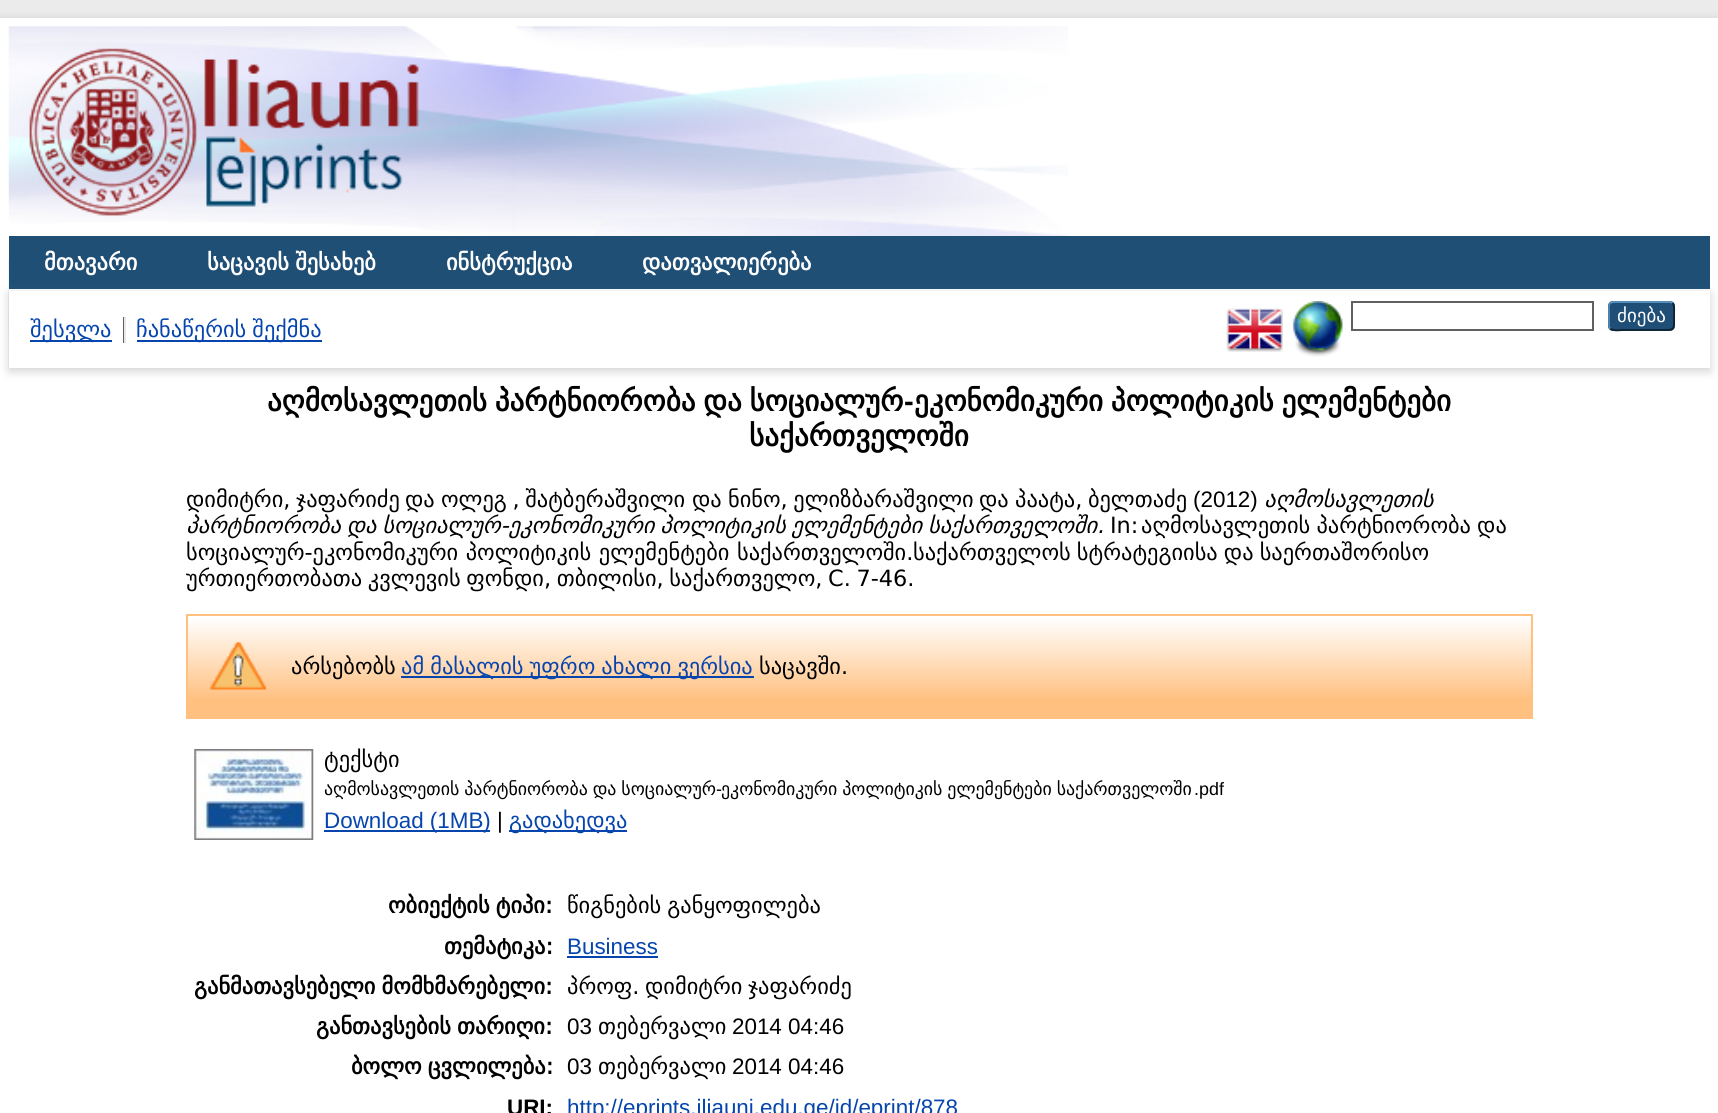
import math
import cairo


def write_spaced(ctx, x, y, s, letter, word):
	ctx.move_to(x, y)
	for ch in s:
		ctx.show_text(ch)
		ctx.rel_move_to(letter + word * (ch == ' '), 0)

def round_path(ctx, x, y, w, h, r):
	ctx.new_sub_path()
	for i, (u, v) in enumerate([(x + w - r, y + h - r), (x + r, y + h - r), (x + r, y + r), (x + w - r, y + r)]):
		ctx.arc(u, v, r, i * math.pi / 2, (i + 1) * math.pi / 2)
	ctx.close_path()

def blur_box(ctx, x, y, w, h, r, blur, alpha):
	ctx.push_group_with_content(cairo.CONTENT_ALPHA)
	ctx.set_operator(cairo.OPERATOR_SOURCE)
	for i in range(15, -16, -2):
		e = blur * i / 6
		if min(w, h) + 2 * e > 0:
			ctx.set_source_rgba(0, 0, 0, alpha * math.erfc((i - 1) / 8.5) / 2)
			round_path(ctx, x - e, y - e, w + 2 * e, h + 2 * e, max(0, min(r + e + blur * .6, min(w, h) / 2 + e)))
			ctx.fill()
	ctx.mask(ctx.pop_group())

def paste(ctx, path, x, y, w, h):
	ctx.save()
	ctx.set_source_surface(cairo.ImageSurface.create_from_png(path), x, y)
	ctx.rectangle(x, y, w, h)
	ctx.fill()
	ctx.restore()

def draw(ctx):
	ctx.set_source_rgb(0.918, 0.918, 0.918)
	ctx.paint()
	ctx.set_source_rgb(0.392, 0.392, 0.392)
	blur_box(ctx, 0, 21, 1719, 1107, 0, 5, 0.3)
	ctx.set_source_rgb(1, 1, 1)
	ctx.rectangle(0, 18, 1718, 1095)
	ctx.fill()
	paste(ctx, 'media/1.png', 8, 26, 1060, 341)
	paste(ctx, 'media/2.png', 29, 48, 390, 168)
	ctx.set_source_rgb(0.125, 0.31, 0.463)
	ctx.rectangle(9, 236, 1701, 53)
	ctx.fill()
	ctx.set_source_rgb(1, 1, 1)
	ctx.rectangle(9, 289, 1059, 2)
	ctx.fill()
	ctx.select_font_face('DejaVu Sans', cairo.FONT_SLANT_NORMAL, cairo.FONT_WEIGHT_BOLD)
	ctx.set_font_size(22.4)
	ctx.move_to(44, 270)
	ctx.show_text('მთავარი')
	write_spaced(ctx, 207, 270, 'საცავის შესახებ', 0, -1)
	ctx.move_to(446, 270)
	ctx.show_text('ინსტრუქცია')
	ctx.move_to(642, 270)
	ctx.show_text('დათვალიერება')
	ctx.set_source_rgb(0.392, 0.392, 0.392)
	blur_box(ctx, 9, 294, 1701, 77, 0, 5, 0.3)
	ctx.set_source_rgb(1, 1, 1)
	ctx.rectangle(9, 291, 1701, 77)
	ctx.fill()
	ctx.set_source_rgb(0.024, 0.271, 0.678)
	ctx.rectangle(30, 340, 82, 2)
	ctx.fill()
	ctx.select_font_face('DejaVu Sans')
	ctx.move_to(30, 337)
	ctx.show_text('შესვლა')
	ctx.set_source_rgb(0.376, 0.376, 0.376)
	ctx.rectangle(123, 317, 1, 26)
	ctx.fill()
	ctx.set_source_rgb(0.024, 0.271, 0.678)
	ctx.rectangle(137, 340, 185, 2)
	ctx.fill()
	write_spaced(ctx, 136, 337, 'ჩანაწერის შექმნა', 0, -1)
	ctx.set_source_rgb(0.91, 0.91, 0.91)
	ctx.rectangle(124, 317, 2, 26)
	ctx.fill()
	paste(ctx, 'media/3.png', 1226, 308, 57, 44)
	paste(ctx, 'media/4.png', 1292, 301, 51, 56)
	ctx.rectangle(1352, 302, 241, 28)
	ctx.set_source_rgb(0.376, 0.376, 0.376)
	ctx.stroke()
	ctx.set_source_rgb(0.122, 0.31, 0.463)
	round_path(ctx, 1608, 301, 67, 30, 5)
	ctx.fill()
	ctx.new_path()
	ctx.move_to(1610.5, 303)
	ctx.curve_to(1611, 302.5, 1612.5, 302, 1613.5, 302)
	ctx.line_to(1669.5, 302)
	ctx.curve_to(1670.5, 302, 1672, 302.5, 1672.5, 303)
	ctx.set_source_rgb(0.357, 0.592, 0.78)
	ctx.set_line_width(1.8)
	ctx.stroke()
	ctx.new_path()
	ctx.move_to(1672.5, 303)
	ctx.curve_to(1675, 305.5, 1674, 313, 1674, 316)
	ctx.curve_to(1674, 330.5, 1675.5, 330, 1660, 330)
	ctx.line_to(1623, 330)
	ctx.curve_to(1621, 330, 1613, 331.5, 1610.5, 328.5)
	ctx.set_source_rgb(0.051, 0.129, 0.192)
	ctx.stroke()
	ctx.new_path()
	ctx.move_to(1610.5, 328.5)
	ctx.curve_to(1609.5, 328, 1609, 326.5, 1609, 325.5)
	ctx.line_to(1609, 306)
	ctx.curve_to(1609, 305, 1609.5, 304, 1610.5, 303)
	ctx.set_source_rgb(0.322, 0.529, 0.702)
	ctx.stroke()
	ctx.set_font_size(19)
	ctx.set_source_rgb(1, 1, 1)
	ctx.move_to(1617, 322)
	ctx.show_text('ძიება')
	ctx.select_font_face('DejaVu Sans', cairo.FONT_SLANT_NORMAL, cairo.FONT_WEIGHT_BOLD)
	ctx.set_font_size(29.1)
	ctx.set_source_rgb(0, 0, 0)
	write_spaced(ctx, 267, 411, 'აღმოსავლეთის პარტნიორობა და სოციალურ', 0, -1.5)
	ctx.select_font_face('Liberation Sans', cairo.FONT_SLANT_NORMAL, cairo.FONT_WEIGHT_BOLD)
	ctx.move_to(904, 411)
	ctx.show_text('-')
	ctx.select_font_face('DejaVu Sans', cairo.FONT_SLANT_NORMAL, cairo.FONT_WEIGHT_BOLD)
	write_spaced(ctx, 914, 411, 'ეკონომიკური პოლიტიკის ელემენტები', 0, -1.5)
	ctx.move_to(749, 446)
	ctx.show_text('საქართველოში')
	ctx.select_font_face('DejaVu Sans')
	ctx.set_font_size(22.4)
	write_spaced(ctx, 186, 507, 'დიმიტრი, ჯაფარიძე', 0, -1.5)
	ctx.move_to(405, 507)
	ctx.show_text('და')
	write_spaced(ctx, 441, 507, 'ოლეგ , შატბერაშვილი', 0, -1.5)
	ctx.move_to(692, 507)
	ctx.show_text('და')
	write_spaced(ctx, 728, 507, 'ნინო, ელიზბარაშვილი', 0, -1.5)
	ctx.move_to(979, 507)
	ctx.show_text('და')
	write_spaced(ctx, 1015, 507, 'პაატა, ბელთაძე', 0, -1.5)
	ctx.select_font_face('Liberation Sans')
	ctx.move_to(1193, 507)
	ctx.show_text('(2012)')
	ctx.select_font_face('DejaVu Sans', cairo.FONT_SLANT_ITALIC)
	ctx.move_to(1264, 507)
	ctx.show_text('აღმოსავლეთის')
	write_spaced(ctx, 186, 533, 'პარტნიორობა და სოციალურ-ეკონომიკური პოლიტიკის ელემენტები საქართველოში.', 0, -1.25)
	ctx.select_font_face('DejaVu Sans')
	ctx.move_to(1110, 533)
	ctx.show_text('In:')
	write_spaced(ctx, 1141, 533, 'აღმოსავლეთის პარტნიორობა და', 0, -1)
	write_spaced(ctx, 186, 560, 'სოციალურ-ეკონომიკური პოლიტიკის ელემენტები საქართველოში.', 0, 0.5)
	write_spaced(ctx, 913, 560, 'საქართველოს სტრატეგიისა და საერთაშორისო', 0, -1)
	write_spaced(ctx, 186, 586, 'ურთიერთობათა კვლევის ფონდი, თბილისი, საქართველო, С. 7-46.', 0, -1.5)
	ctx.set_source_rgb(1, 0.753, 0.502)
	ctx.rectangle(188, 618, 1343, 99)
	ctx.fill()
	paste(ctx, 'media/5.png', 188, 616, 1343, 82)
	ctx.rectangle(187, 615, 1345, 103)
	ctx.set_line_width(2)
	ctx.stroke()
	paste(ctx, 'media/6.png', 210, 641, 56, 49)
	ctx.set_source_rgb(0, 0, 0)
	ctx.move_to(291, 674)
	ctx.show_text('არსებობს')
	ctx.set_source_rgb(0.024, 0.271, 0.678)
	ctx.rectangle(401, 676, 353, 2)
	ctx.fill()
	write_spaced(ctx, 401, 674, 'ამ მასალის უფრო ახალი ვერსია', 0, -1)
	ctx.set_source_rgb(0, 0, 0)
	ctx.move_to(759, 674)
	ctx.show_text('საცავში.')
	paste(ctx, 'media/7.png', 194, 749, 120, 91)
	ctx.move_to(324, 767)
	ctx.show_text('ტექსტი')
	ctx.set_font_size(17.9)
	write_spaced(ctx, 324, 795, 'აღმოსავლეთის პარტნიორობა და სოციალურ ეკონომიკური პოლიტიკის ელემენტები საქართველოში', 0, -0.75)
	ctx.select_font_face('Liberation Sans')
	ctx.move_to(1194, 795)
	ctx.show_text('.pdf')
	ctx.move_to(716, 795)
	ctx.show_text('-')
	ctx.set_source_rgb(0.024, 0.271, 0.678)
	ctx.rectangle(324, 830, 166, 2)
	ctx.fill()
	ctx.set_font_size(22.4)
	ctx.move_to(324, 828)
	ctx.show_text('Download (1MB)')
	ctx.set_source_rgb(0, 0, 0)
	ctx.move_to(497, 828)
	ctx.show_text('|')
	ctx.set_source_rgb(0.024, 0.271, 0.678)
	ctx.rectangle(509, 830, 118, 2)
	ctx.fill()
	ctx.select_font_face('DejaVu Sans')
	ctx.move_to(509, 828)
	ctx.show_text('გადახედვა')
	ctx.select_font_face('DejaVu Sans', cairo.FONT_SLANT_NORMAL, cairo.FONT_WEIGHT_BOLD)
	ctx.set_source_rgb(0, 0, 0)
	write_spaced(ctx, 388, 913, 'ობიექტის ტიპი:', 0, -1)
	ctx.select_font_face('DejaVu Sans')
	write_spaced(ctx, 567, 913, 'წიგნების განყოფილება', 0, -1)
	ctx.select_font_face('DejaVu Sans', cairo.FONT_SLANT_NORMAL, cairo.FONT_WEIGHT_BOLD)
	ctx.move_to(444, 954)
	ctx.show_text('თემატიკა:')
	ctx.select_font_face('Liberation Sans')
	ctx.set_source_rgb(0.024, 0.271, 0.678)
	ctx.move_to(567, 954)
	ctx.show_text('Business')
	ctx.rectangle(567, 956, 91, 2)
	ctx.fill()
	ctx.select_font_face('DejaVu Sans', cairo.FONT_SLANT_NORMAL, cairo.FONT_WEIGHT_BOLD)
	ctx.set_source_rgb(0, 0, 0)
	write_spaced(ctx, 194, 994, 'განმათავსებელი მომხმარებელი:', 0, -1)
	ctx.select_font_face('DejaVu Sans')
	write_spaced(ctx, 567, 994, 'პროფ. დიმიტრი ჯაფარიძე', 0, -1.5)
	ctx.select_font_face('DejaVu Sans', cairo.FONT_SLANT_NORMAL, cairo.FONT_WEIGHT_BOLD)
	write_spaced(ctx, 316, 1034, 'განთავსების თარიღი:', 0, -1)
	ctx.select_font_face('Liberation Sans')
	ctx.move_to(567, 1034)
	ctx.show_text('03')
	ctx.select_font_face('DejaVu Sans')
	ctx.move_to(598, 1034)
	ctx.show_text('თებერვალი')
	ctx.select_font_face('Liberation Sans')
	ctx.move_to(732, 1034)
	ctx.show_text('2014 04:46')
	ctx.select_font_face('DejaVu Sans', cairo.FONT_SLANT_NORMAL, cairo.FONT_WEIGHT_BOLD)
	write_spaced(ctx, 351, 1074, 'ბოლო ცვლილება:', 0, -1)
	ctx.select_font_face('Liberation Sans')
	ctx.move_to(567, 1074)
	ctx.show_text('03')
	ctx.select_font_face('DejaVu Sans')
	ctx.move_to(598, 1074)
	ctx.show_text('თებერვალი')
	ctx.select_font_face('Liberation Sans')
	ctx.move_to(732, 1074)
	ctx.show_text('2014 04:46')
	ctx.select_font_face('Liberation Sans', cairo.FONT_SLANT_NORMAL, cairo.FONT_WEIGHT_BOLD)
	ctx.move_to(507, 1115)
	ctx.show_text('URI:')
	ctx.select_font_face('Liberation Sans')
	ctx.set_source_rgb(0.024, 0.271, 0.678)
	ctx.move_to(567, 1115)
	ctx.show_text('http://eprints.iliauni.edu.ge/id/eprint/878')


surface = cairo.ImageSurface(cairo.FORMAT_RGB24, 1718, 1113)
ctx = cairo.Context(surface)
options = cairo.FontOptions()
options.set_hint_metrics(cairo.HINT_METRICS_OFF)
options.set_hint_style(cairo.HINT_STYLE_NONE)
ctx.set_font_options(options)
ctx.set_miter_limit(4)
draw(ctx)
surface.write_to_png('image.png')
